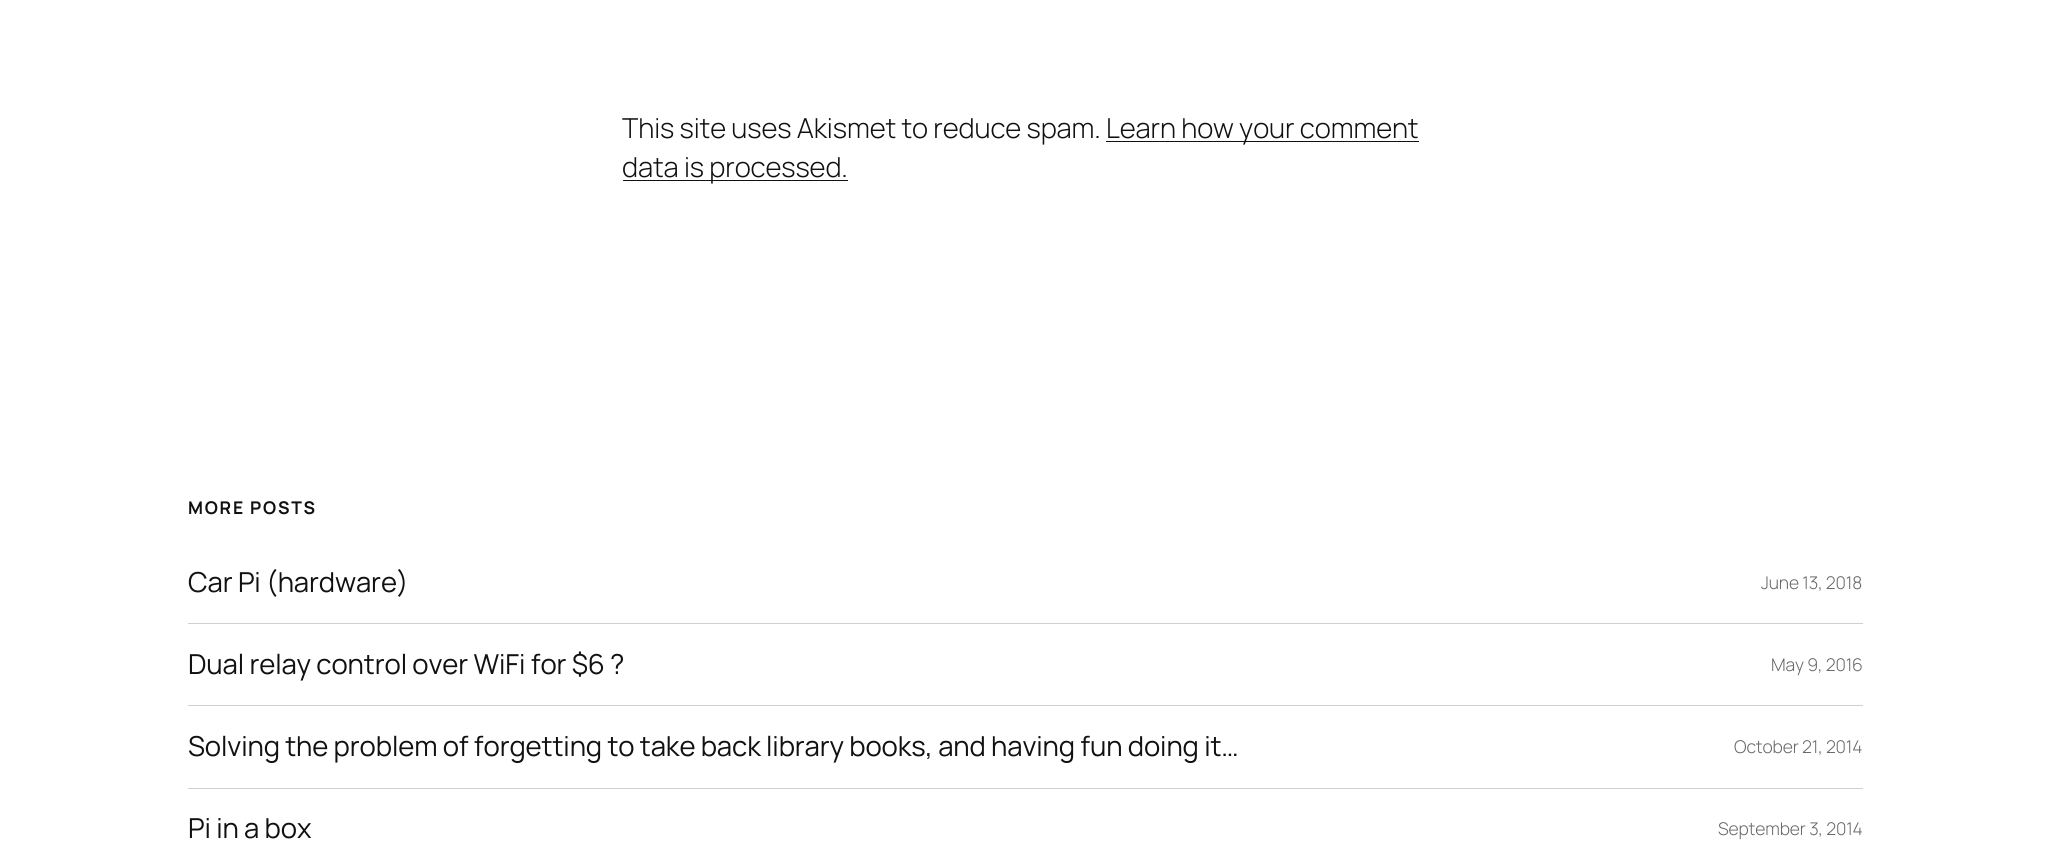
import math
import cairo


def write_spaced(ctx, x, y, s, letter, word):
	ctx.move_to(x, y)
	for ch in s:
		ctx.show_text(ch)
		ctx.rel_move_to(letter + word * (ch == ' '), 0)

def draw(ctx):
	ctx.set_source_rgb(1, 1, 1)
	ctx.paint()
	ctx.select_font_face('Manrope Light')
	ctx.set_font_size(27.5)
	ctx.set_source_rgb(0.067, 0.067, 0.067)
	write_spaced(ctx, 622, 138, 'This site uses Akismet to reduce spam.', -0.12, 0)
	ctx.rectangle(1106, 141, 313, 1)
	ctx.fill()
	write_spaced(ctx, 1106, 138, 'Learn how your comment', -0.12, 0)
	ctx.rectangle(623, 180, 225, 1)
	ctx.fill()
	write_spaced(ctx, 622, 177, 'data is processed.', -0.12, 0)
	ctx.select_font_face('Manrope', cairo.FONT_SLANT_NORMAL, cairo.FONT_WEIGHT_BOLD)
	ctx.set_font_size(17.5)
	write_spaced(ctx, 188, 514, 'MORE POSTS', 1.75, 0)
	ctx.set_source_rgb(0.812, 0.812, 0.812)
	ctx.rectangle(188, 623, 1675, 1)
	ctx.fill()
	ctx.select_font_face('Manrope')
	ctx.set_font_size(27.5)
	ctx.set_source_rgb(0.067, 0.067, 0.067)
	write_spaced(ctx, 188, 592, 'Car Pi (hardware)', -0.12, 0)
	ctx.select_font_face('Manrope Light')
	ctx.set_font_size(17.5)
	ctx.set_source_rgb(0.408, 0.408, 0.408)
	write_spaced(ctx, 1761, 589, 'June 13, 2018', -0.12, 0)
	ctx.set_source_rgb(0.812, 0.812, 0.812)
	ctx.rectangle(188, 705, 1675, 1)
	ctx.fill()
	ctx.select_font_face('Manrope')
	ctx.set_font_size(27.5)
	ctx.set_source_rgb(0.067, 0.067, 0.067)
	write_spaced(ctx, 188, 674, 'Dual relay control over WiFi for $6 ?', -0.12, 0)
	ctx.select_font_face('Manrope Light')
	ctx.set_font_size(17.5)
	ctx.set_source_rgb(0.408, 0.408, 0.408)
	write_spaced(ctx, 1771, 671, 'May 9, 2016', -0.12, 0)
	ctx.set_source_rgb(0.812, 0.812, 0.812)
	ctx.rectangle(188, 788, 1675, 1)
	ctx.fill()
	ctx.select_font_face('Manrope')
	ctx.set_font_size(27.5)
	ctx.set_source_rgb(0.067, 0.067, 0.067)
	write_spaced(ctx, 188, 756, 'Solving the problem of forgetting to take back library books, and having fun doing it…', -0.12, 0)
	ctx.select_font_face('Manrope Light')
	ctx.set_font_size(17.5)
	ctx.set_source_rgb(0.408, 0.408, 0.408)
	write_spaced(ctx, 1734, 753, 'October 21, 2014', -0.12, 0)
	ctx.select_font_face('Manrope')
	ctx.set_font_size(27.5)
	ctx.set_source_rgb(0.067, 0.067, 0.067)
	write_spaced(ctx, 188, 838, 'Pi in a box', -0.12, 0)
	ctx.select_font_face('Manrope Light')
	ctx.set_font_size(17.5)
	ctx.set_source_rgb(0.408, 0.408, 0.408)
	write_spaced(ctx, 1718, 835, 'September 3, 2014', -0.12, 0)


surface = cairo.ImageSurface(cairo.FORMAT_RGB24, 2050, 858)
ctx = cairo.Context(surface)
options = cairo.FontOptions()
options.set_hint_metrics(cairo.HINT_METRICS_OFF)
options.set_hint_style(cairo.HINT_STYLE_NONE)
ctx.set_font_options(options)
ctx.set_miter_limit(4)
draw(ctx)
surface.write_to_png('image.png')
